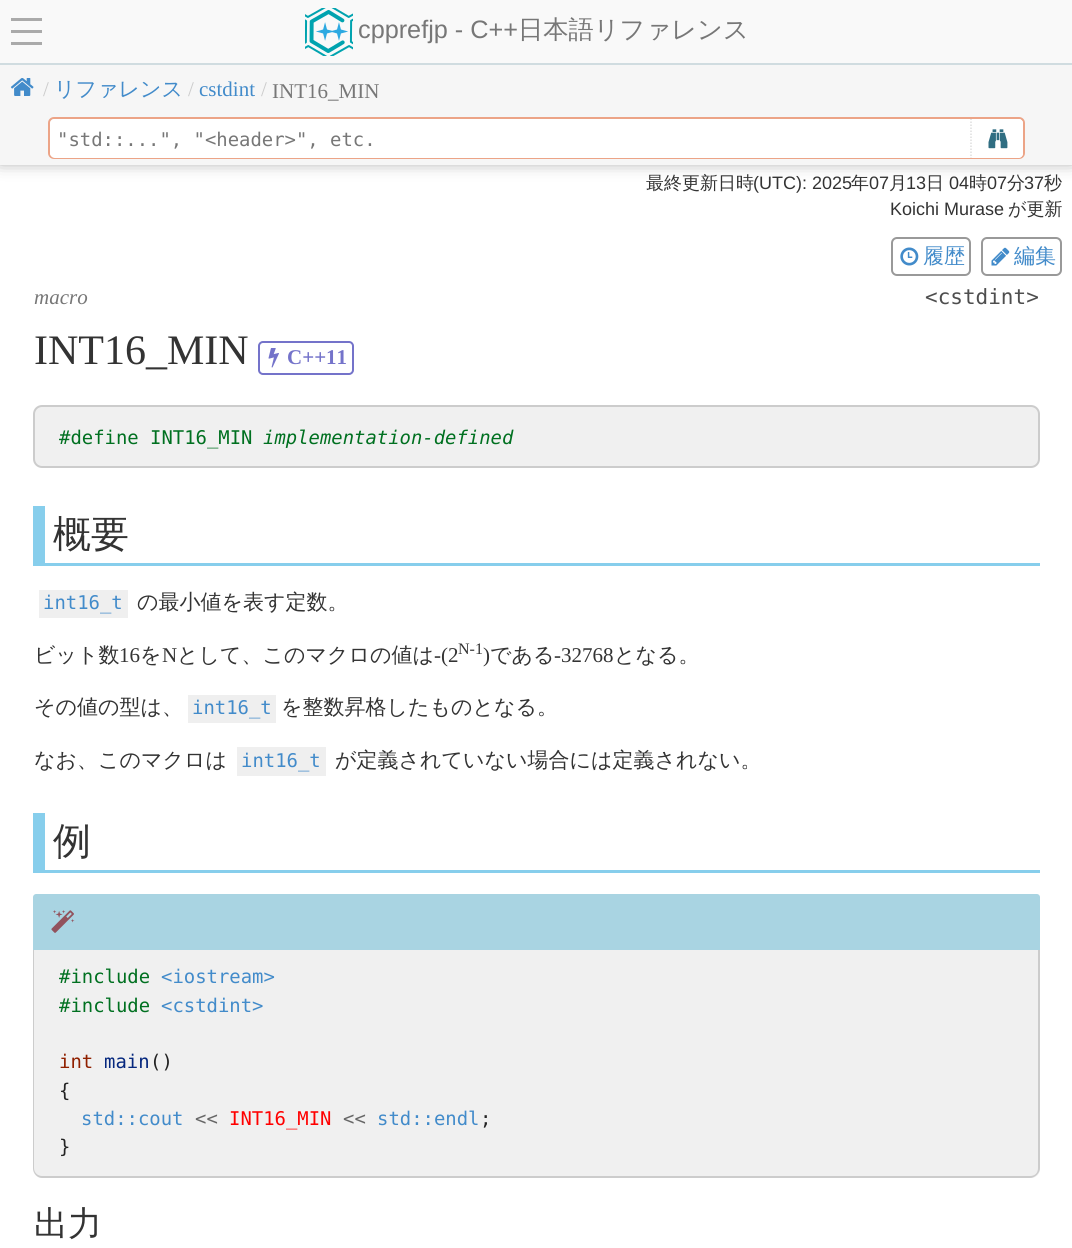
import math
import cairo


def round_path(ctx, x, y, w, h, r):
	ctx.new_sub_path()
	for i, (u, v) in enumerate([(x + w - r, y + h - r), (x + r, y + h - r), (x + r, y + r), (x + w - r, y + r)]):
		ctx.arc(u, v, r, i * math.pi / 2, (i + 1) * math.pi / 2)
	ctx.close_path()

def blur_box(ctx, x, y, w, h, r, blur, alpha):
	ctx.push_group_with_content(cairo.CONTENT_ALPHA)
	ctx.set_operator(cairo.OPERATOR_SOURCE)
	for i in range(15, -16, -2):
		e = blur * i / 6
		if min(w, h) + 2 * e > 0:
			ctx.set_source_rgba(0, 0, 0, alpha * math.erfc((i - 1) / 8.5) / 2)
			round_path(ctx, x - e, y - e, w + 2 * e, h + 2 * e, max(0, min(r + e + blur * .6, min(w, h) / 2 + e)))
			ctx.fill()
	ctx.mask(ctx.pop_group())

def paste(ctx, path, x, y, w, h):
	ctx.save()
	ctx.set_source_surface(cairo.ImageSurface.create_from_png(path), x, y)
	ctx.rectangle(x, y, w, h)
	ctx.fill()
	ctx.restore()

def draw(ctx):
	ctx.set_source_rgb(1, 1, 1)
	ctx.paint()
	ctx.set_source_rgb(0.078, 0.078, 0.078)
	blur_box(ctx, 0, 59, 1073, 100, 0, 9, 0.6)
	ctx.set_source_rgb(0.973, 0.973, 0.973)
	ctx.rectangle(0, 0, 1072, 63)
	ctx.fill()
	ctx.set_source_rgb(0.816, 0.863, 0.878)
	ctx.rectangle(0, 63, 1072, 2)
	ctx.fill()
	ctx.set_source_rgb(0.667, 0.667, 0.667)
	ctx.rectangle(11, 18, 31, 3)
	ctx.rectangle(11, 30, 31, 3)
	ctx.rectangle(11, 42, 31, 3)
	ctx.fill()
	paste(ctx, 'media/1.png', 305, 8, 48, 48)
	ctx.select_font_face('Liberation Sans')
	ctx.set_font_size(25.25)
	ctx.set_source_rgb(0.467, 0.467, 0.467)
	ctx.move_to(358, 38)
	ctx.show_text('cpprefjp - C++')
	ctx.select_font_face('WenQuanYi Zen Hei Medium')
	ctx.move_to(518, 38)
	ctx.show_text('日本語リファレンス')
	ctx.set_source_rgb(0.961, 0.961, 0.961)
	ctx.rectangle(0, 65, 1072, 100)
	ctx.fill()
	paste(ctx, 'media/2.png', 10, 78, 24, 18)
	ctx.select_font_face('Liberation Serif')
	ctx.set_font_size(21)
	ctx.set_source_rgb(0.8, 0.8, 0.8)
	ctx.move_to(43, 96)
	ctx.show_text('/')
	ctx.select_font_face('WenQuanYi Zen Hei Medium')
	ctx.set_source_rgb(0.259, 0.545, 0.792)
	ctx.move_to(54, 96)
	ctx.show_text('リファレンス')
	ctx.select_font_face('Liberation Serif')
	ctx.set_source_rgb(0.8, 0.8, 0.8)
	ctx.move_to(188, 96)
	ctx.show_text('/')
	ctx.set_source_rgb(0.259, 0.545, 0.792)
	ctx.move_to(199, 96)
	ctx.show_text('cstdint')
	ctx.set_source_rgb(0.8, 0.8, 0.8)
	ctx.move_to(261, 96)
	ctx.show_text('/')
	ctx.set_source_rgb(0.467, 0.467, 0.467)
	ctx.move_to(272, 98)
	ctx.show_text('INT16_MIN')
	round_path(ctx, 49, 118, 975, 40, 5)
	ctx.set_source_rgb(0.922, 0.643, 0.529)
	ctx.stroke()
	ctx.set_source_rgb(1, 1, 1)
	round_path(ctx, 50, 119, 973, 39, 5)
	ctx.fill()
	ctx.select_font_face('DejaVu Sans Mono')
	ctx.set_font_size(18.9)
	ctx.set_source_rgb(0.467, 0.467, 0.467)
	ctx.move_to(57, 146)
	ctx.show_text('"std::...", "<header>", etc.')
	ctx.set_source_rgb(1, 1, 1)
	ctx.new_path()
	ctx.move_to(971, 119)
	ctx.line_to(1018, 119)
	ctx.curve_to(1021, 119, 1023, 121, 1023, 124)
	ctx.line_to(1023, 153)
	ctx.curve_to(1023, 156, 1021, 158, 1018, 158)
	ctx.line_to(971, 158)
	ctx.close_path()
	ctx.fill()
	ctx.save()
	round_path(ctx, 50, 119, 973, 39, 5)
	ctx.clip()
	ctx.new_path()
	ctx.move_to(971, 118.5)
	ctx.line_to(971, 160.5)
	ctx.set_source_rgb(0.867, 0.867, 0.867)
	ctx.set_line_width(1.5)
	ctx.set_dash([1.5, 1.5])
	ctx.stroke()
	ctx.restore()
	paste(ctx, 'media/3.png', 988, 129, 20, 20)
	ctx.select_font_face('WenQuanYi Zen Hei Medium')
	ctx.set_font_size(18)
	ctx.set_source_rgb(0.2, 0.2, 0.2)
	ctx.move_to(646, 189)
	ctx.show_text('最終更新日時')
	ctx.select_font_face('Liberation Sans')
	ctx.move_to(753, 189)
	ctx.show_text('(UTC): 2025')
	ctx.select_font_face('WenQuanYi Zen Hei Medium')
	ctx.move_to(851, 189)
	ctx.show_text('年')
	ctx.select_font_face('Liberation Sans')
	ctx.move_to(869, 189)
	ctx.show_text('07')
	ctx.select_font_face('WenQuanYi Zen Hei Medium')
	ctx.move_to(889, 189)
	ctx.show_text('月')
	ctx.select_font_face('Liberation Sans')
	ctx.move_to(906, 189)
	ctx.show_text('13')
	ctx.select_font_face('WenQuanYi Zen Hei Medium')
	ctx.move_to(926, 189)
	ctx.show_text('日')
	ctx.select_font_face('Liberation Sans')
	ctx.move_to(949, 189)
	ctx.show_text('04')
	ctx.select_font_face('WenQuanYi Zen Hei Medium')
	ctx.move_to(969, 189)
	ctx.show_text('時')
	ctx.select_font_face('Liberation Sans')
	ctx.move_to(987, 189)
	ctx.show_text('07')
	ctx.select_font_face('WenQuanYi Zen Hei Medium')
	ctx.move_to(1007, 189)
	ctx.show_text('分')
	ctx.select_font_face('Liberation Sans')
	ctx.move_to(1024, 189)
	ctx.show_text('37')
	ctx.select_font_face('WenQuanYi Zen Hei Medium')
	ctx.move_to(1044, 189)
	ctx.show_text('秒')
	ctx.select_font_face('Liberation Sans')
	ctx.move_to(890, 215)
	ctx.show_text('Koichi Murase')
	ctx.select_font_face('WenQuanYi Zen Hei Medium')
	ctx.move_to(1008, 215)
	ctx.show_text('が更新')
	round_path(ctx, 892, 238, 78, 37, 5)
	ctx.set_source_rgb(0.6, 0.6, 0.6)
	ctx.stroke()
	paste(ctx, 'media/4.png', 900, 247, 19, 19)
	ctx.set_font_size(21)
	ctx.set_source_rgb(0.259, 0.545, 0.792)
	ctx.move_to(923, 263)
	ctx.show_text('履歴')
	round_path(ctx, 982, 238, 79, 37, 5)
	ctx.set_source_rgb(0.6, 0.6, 0.6)
	ctx.stroke()
	paste(ctx, 'media/5.png', 991, 247, 19, 19)
	ctx.set_source_rgb(0.259, 0.545, 0.792)
	ctx.move_to(1014, 263)
	ctx.show_text('編集')
	ctx.select_font_face('Liberation Serif', cairo.FONT_SLANT_ITALIC)
	ctx.set_source_rgb(0.467, 0.467, 0.467)
	ctx.move_to(34, 304)
	ctx.show_text('macro')
	ctx.select_font_face('DejaVu Sans Mono')
	ctx.set_source_rgb(0.306, 0.306, 0.306)
	ctx.move_to(925, 304)
	ctx.show_text('<cstdint>')
	ctx.select_font_face('Liberation Serif')
	ctx.set_font_size(42)
	ctx.set_source_rgb(0.2, 0.2, 0.2)
	ctx.move_to(34, 364)
	ctx.show_text('INT16_MIN')
	round_path(ctx, 259, 342, 94, 32, 4)
	ctx.set_source_rgb(0.455, 0.451, 0.792)
	ctx.stroke()
	paste(ctx, 'media/6.png', 268, 348, 11, 20)
	ctx.select_font_face('Liberation Serif', cairo.FONT_SLANT_NORMAL, cairo.FONT_WEIGHT_BOLD)
	ctx.set_font_size(21)
	ctx.move_to(287, 364)
	ctx.show_text('C++11')
	ctx.set_source_rgb(0.941, 0.941, 0.941)
	round_path(ctx, 34, 406, 1005, 61, 8)
	ctx.fill_preserve()
	ctx.set_source_rgb(0.8, 0.8, 0.8)
	ctx.stroke()
	ctx.select_font_face('DejaVu Sans Mono')
	ctx.set_font_size(18.9)
	ctx.set_source_rgb(0, 0.439, 0.125)
	ctx.move_to(59, 444)
	ctx.show_text('#define INT16_MIN')
	ctx.select_font_face('DejaVu Sans Mono', cairo.FONT_SLANT_ITALIC)
	ctx.move_to(263, 444)
	ctx.show_text('implementation-defined')
	ctx.set_source_rgb(0.529, 0.808, 0.922)
	ctx.rectangle(45, 563, 995, 3)
	ctx.fill()
	ctx.rectangle(33, 506, 12, 60)
	ctx.fill()
	ctx.select_font_face('WenQuanYi Zen Hei Medium')
	ctx.set_font_size(38)
	ctx.set_source_rgb(0.2, 0.2, 0.2)
	ctx.move_to(53, 547)
	ctx.show_text('概要')
	ctx.set_source_rgb(0.937, 0.937, 0.937)
	ctx.rectangle(39, 590, 89, 28)
	ctx.fill()
	ctx.select_font_face('DejaVu Sans Mono')
	ctx.set_font_size(18.9)
	ctx.set_source_rgb(0.259, 0.545, 0.792)
	ctx.move_to(43, 609)
	ctx.show_text('int16_t')
	ctx.select_font_face('WenQuanYi Zen Hei Medium')
	ctx.set_font_size(21)
	ctx.set_source_rgb(0.2, 0.2, 0.2)
	ctx.move_to(137, 609)
	ctx.show_text('の最小値を表す定数。')
	ctx.move_to(34, 662)
	ctx.show_text('ビット数')
	ctx.select_font_face('Liberation Serif')
	ctx.move_to(119, 662)
	ctx.show_text('16')
	ctx.select_font_face('WenQuanYi Zen Hei Medium')
	ctx.move_to(140, 662)
	ctx.show_text('を')
	ctx.select_font_face('Liberation Serif')
	ctx.move_to(162, 662)
	ctx.show_text('N')
	ctx.select_font_face('WenQuanYi Zen Hei Medium')
	ctx.move_to(177, 662)
	ctx.show_text('として、このマクロの値は')
	ctx.select_font_face('Liberation Serif')
	ctx.move_to(434, 662)
	ctx.show_text('-(2')
	ctx.set_font_size(16)
	ctx.move_to(458, 654)
	ctx.show_text('N-1')
	ctx.set_font_size(21)
	ctx.move_to(483, 662)
	ctx.show_text(')')
	ctx.select_font_face('WenQuanYi Zen Hei Medium')
	ctx.move_to(490, 662)
	ctx.show_text('である')
	ctx.select_font_face('Liberation Serif')
	ctx.move_to(554, 662)
	ctx.show_text('-32768')
	ctx.select_font_face('WenQuanYi Zen Hei Medium')
	ctx.move_to(614, 662)
	ctx.show_text('となる。')
	ctx.move_to(34, 714)
	ctx.show_text('その値の型は、')
	ctx.set_source_rgb(0.937, 0.937, 0.937)
	ctx.rectangle(188, 695, 88, 28)
	ctx.fill()
	ctx.select_font_face('DejaVu Sans Mono')
	ctx.set_font_size(18.9)
	ctx.set_source_rgb(0.259, 0.545, 0.792)
	ctx.move_to(192, 714)
	ctx.show_text('int16_t')
	ctx.select_font_face('WenQuanYi Zen Hei Medium')
	ctx.set_font_size(21)
	ctx.set_source_rgb(0.2, 0.2, 0.2)
	ctx.move_to(281, 714)
	ctx.show_text('を整数昇格したものとなる。')
	ctx.move_to(34, 767)
	ctx.show_text('なお、このマクロは')
	ctx.set_source_rgb(0.937, 0.937, 0.937)
	ctx.rectangle(237, 747, 89, 29)
	ctx.fill()
	ctx.select_font_face('DejaVu Sans Mono')
	ctx.set_font_size(18.9)
	ctx.set_source_rgb(0.259, 0.545, 0.792)
	ctx.move_to(241, 767)
	ctx.show_text('int16_t')
	ctx.select_font_face('WenQuanYi Zen Hei Medium')
	ctx.set_font_size(21)
	ctx.set_source_rgb(0.2, 0.2, 0.2)
	ctx.move_to(335, 767)
	ctx.show_text('が定義されていない場合には定義されない。')
	ctx.set_source_rgb(0.529, 0.808, 0.922)
	ctx.rectangle(45, 870, 995, 3)
	ctx.fill()
	ctx.rectangle(33, 813, 12, 60)
	ctx.fill()
	ctx.set_font_size(38)
	ctx.set_source_rgb(0.2, 0.2, 0.2)
	ctx.move_to(53, 854)
	ctx.show_text('例')
	ctx.set_source_rgb(0.663, 0.831, 0.886)
	ctx.new_path()
	ctx.move_to(36, 894)
	ctx.line_to(1037, 894)
	ctx.curve_to(1038.5, 894, 1040, 895.5, 1040, 897)
	ctx.line_to(1040, 950)
	ctx.line_to(33, 950)
	ctx.line_to(33, 897)
	ctx.curve_to(33, 895.5, 34.5, 894, 36, 894)
	ctx.close_path()
	ctx.fill()
	paste(ctx, 'media/7.png', 51, 910, 24, 23)
	ctx.set_source_rgb(0.941, 0.941, 0.941)
	ctx.new_path()
	ctx.move_to(33, 950)
	ctx.line_to(1040, 950)
	ctx.line_to(1040, 1169)
	ctx.curve_to(1040, 1174, 1036, 1178, 1031, 1178)
	ctx.line_to(42, 1178)
	ctx.curve_to(37, 1178, 33, 1174, 33, 1169)
	ctx.close_path()
	ctx.fill()
	ctx.set_source_rgb(0.8, 0.8, 0.8)
	ctx.set_fill_rule(cairo.FILL_RULE_EVEN_ODD)
	ctx.new_path()
	ctx.move_to(33, 950)
	ctx.line_to(1040, 950)
	ctx.line_to(1040, 1168)
	ctx.curve_to(1040, 1173, 1035, 1178, 1030, 1178)
	ctx.line_to(42, 1178)
	ctx.curve_to(37, 1178, 33, 1173, 33, 1168)
	ctx.close_path()
	ctx.move_to(34, 950)
	ctx.line_to(1038, 950)
	ctx.line_to(1038, 1168)
	ctx.curve_to(1038, 1173, 1035, 1176, 1030, 1176)
	ctx.line_to(42, 1176)
	ctx.curve_to(38, 1176, 34, 1173, 34, 1168)
	ctx.close_path()
	ctx.fill()
	ctx.select_font_face('DejaVu Sans Mono')
	ctx.set_font_size(18.9)
	ctx.set_source_rgb(0, 0.439, 0.125)
	ctx.move_to(59, 983)
	ctx.show_text('#include')
	ctx.set_source_rgb(0.259, 0.545, 0.792)
	ctx.move_to(161, 983)
	ctx.show_text('<iostream>')
	ctx.set_source_rgb(0, 0.439, 0.125)
	ctx.move_to(59, 1012)
	ctx.show_text('#include')
	ctx.set_source_rgb(0.259, 0.545, 0.792)
	ctx.move_to(161, 1012)
	ctx.show_text('<cstdint>')
	ctx.set_source_rgb(0.565, 0.125, 0)
	ctx.move_to(59, 1068)
	ctx.show_text('int')
	ctx.set_source_rgb(0.024, 0.157, 0.494)
	ctx.move_to(104, 1068)
	ctx.show_text('main')
	ctx.set_source_rgb(0.137, 0.137, 0.137)
	ctx.move_to(150, 1068)
	ctx.show_text('()')
	ctx.move_to(59, 1097)
	ctx.show_text('{')
	ctx.set_source_rgb(0.259, 0.545, 0.792)
	ctx.move_to(81, 1125)
	ctx.show_text('std::cout')
	ctx.set_source_rgb(0.4, 0.4, 0.4)
	ctx.move_to(195, 1125)
	ctx.show_text('<<')
	ctx.set_source_rgb(1, 0, 0)
	ctx.move_to(229, 1125)
	ctx.show_text('INT16_MIN')
	ctx.set_source_rgb(0.4, 0.4, 0.4)
	ctx.move_to(343, 1125)
	ctx.show_text('<<')
	ctx.set_source_rgb(0.259, 0.545, 0.792)
	ctx.move_to(377, 1125)
	ctx.show_text('std::endl')
	ctx.set_source_rgb(0.137, 0.137, 0.137)
	ctx.move_to(480, 1125)
	ctx.show_text(';')
	ctx.move_to(59, 1153)
	ctx.show_text('}')
	ctx.select_font_face('WenQuanYi Zen Hei Medium')
	ctx.set_font_size(34)
	ctx.set_source_rgb(0.2, 0.2, 0.2)
	ctx.move_to(34, 1235)
	ctx.show_text('出力')


surface = cairo.ImageSurface(cairo.FORMAT_RGB24, 1072, 1248)
ctx = cairo.Context(surface)
options = cairo.FontOptions()
options.set_hint_metrics(cairo.HINT_METRICS_OFF)
options.set_hint_style(cairo.HINT_STYLE_NONE)
ctx.set_font_options(options)
ctx.set_miter_limit(4)
draw(ctx)
surface.write_to_png('image.png')
